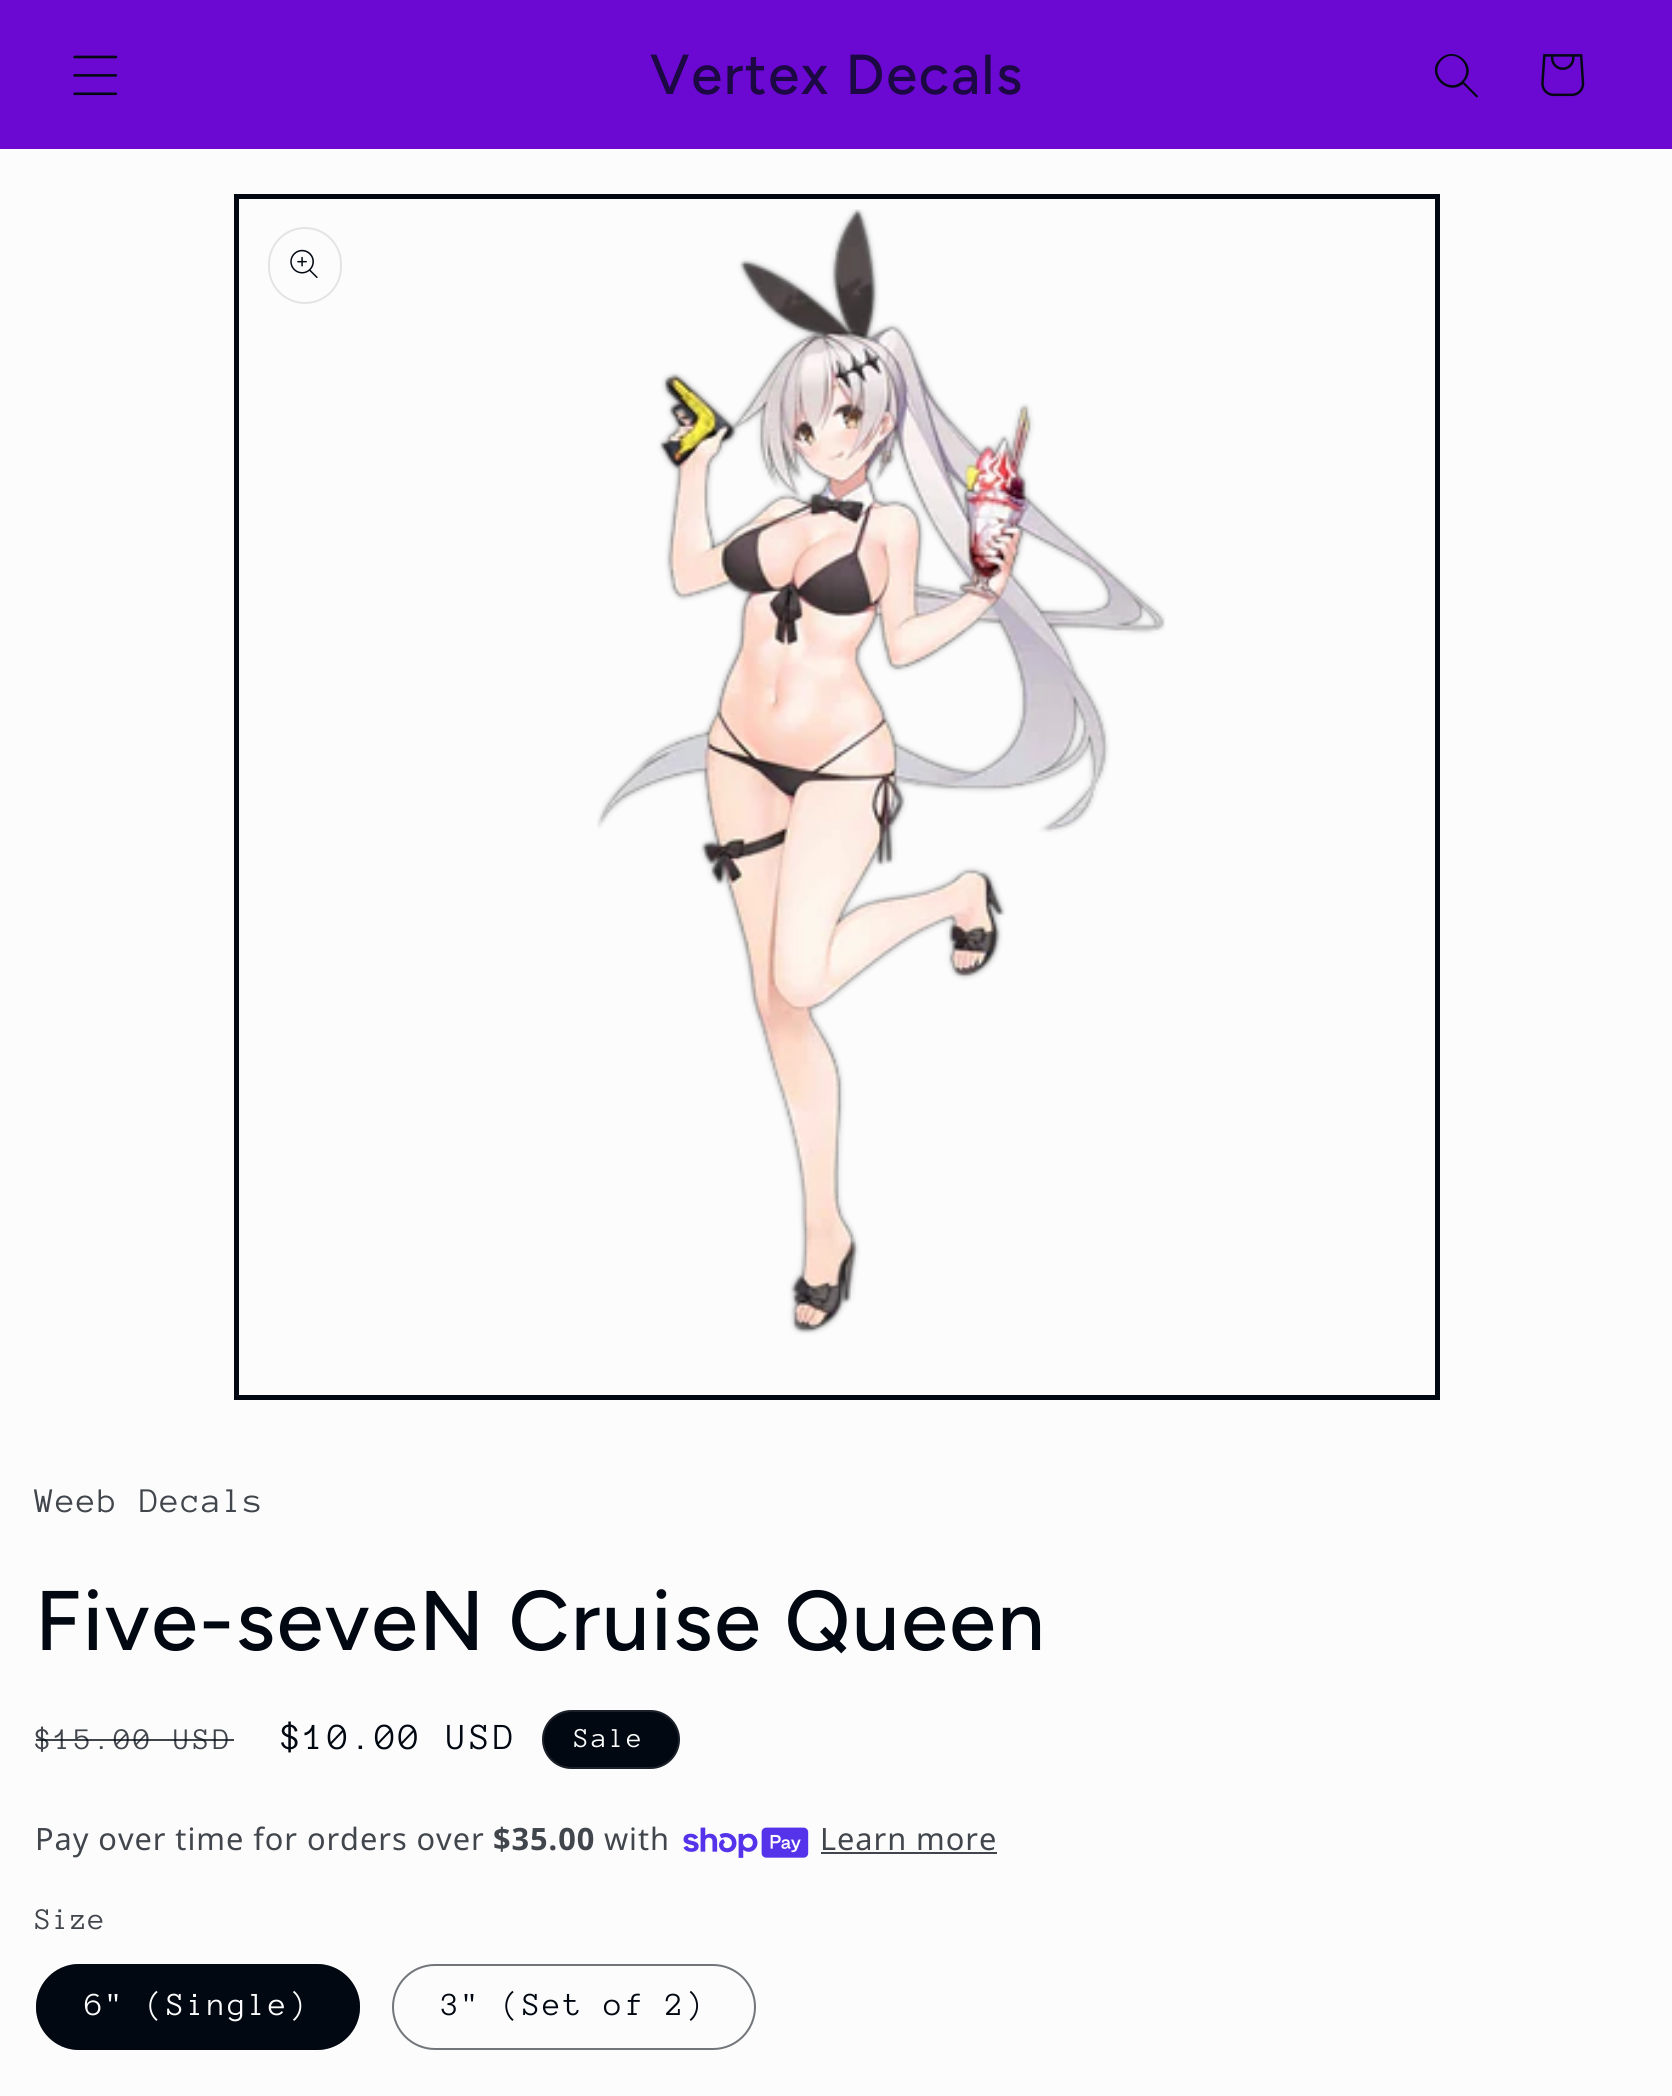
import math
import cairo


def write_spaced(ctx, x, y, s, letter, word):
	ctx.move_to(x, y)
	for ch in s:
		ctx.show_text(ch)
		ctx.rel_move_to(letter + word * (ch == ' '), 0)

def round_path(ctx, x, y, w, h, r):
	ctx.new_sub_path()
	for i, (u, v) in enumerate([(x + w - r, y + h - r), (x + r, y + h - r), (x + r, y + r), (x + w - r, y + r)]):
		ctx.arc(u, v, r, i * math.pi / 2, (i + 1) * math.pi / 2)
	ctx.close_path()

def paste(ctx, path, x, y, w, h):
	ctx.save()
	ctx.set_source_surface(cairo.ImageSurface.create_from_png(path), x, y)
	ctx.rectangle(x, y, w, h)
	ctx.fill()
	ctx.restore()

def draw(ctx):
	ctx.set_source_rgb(0.988, 0.988, 0.988)
	ctx.paint()
	ctx.set_source_rgb(0.42, 0.035, 0.824)
	ctx.rectangle(0, 0, 1672, 149)
	ctx.fill()
	paste(ctx, 'media/1.png', 73, 55, 45, 41)
	ctx.select_font_face('Figtree Medium')
	ctx.set_font_size(56.25)
	ctx.set_source_rgb(0.11, 0.035, 0.259)
	write_spaced(ctx, 650, 94, 'Vertex Decals', 1.7, 0)
	ctx.set_source_rgb(0.008, 0.035, 0.071)
	ctx.set_fill_rule(cairo.FILL_RULE_EVEN_ODD)
	ctx.new_path()
	ctx.move_to(1462, 81)
	ctx.curve_to(1449, 94, 1428, 74, 1442, 60)
	ctx.curve_to(1455, 47, 1475, 67, 1462, 81)
	ctx.move_to(1463, 84)
	ctx.curve_to(1446, 97, 1425, 73, 1440, 59)
	ctx.curve_to(1455, 44, 1479, 66, 1464, 82)
	ctx.line_to(1478, 96)
	ctx.curve_to(1478, 97, 1477, 98, 1476, 97)
	ctx.close_path()
	ctx.fill()
	paste(ctx, 'media/2.png', 1541, 54, 44, 43)
	ctx.rectangle(236.5, 196.5, 1201, 1201)
	ctx.set_line_width(5)
	ctx.stroke()
	round_path(ctx, 269, 228, 72, 75, 36)
	ctx.set_source_rgb(0.89, 0.894, 0.898)
	ctx.set_line_width(2)
	ctx.stroke()
	paste(ctx, 'media/3.png', 290, 249, 28, 29)
	paste(ctx, 'media/4.png', 597, 209, 569, 1126)
	ctx.select_font_face('Anonymous Pro')
	ctx.set_font_size(35.5)
	ctx.set_source_rgb(0.255, 0.275, 0.302)
	write_spaced(ctx, 35, 1512, 'Weeb Decals', 1.5, 0)
	ctx.select_font_face('Figtree Medium')
	ctx.set_font_size(84.4)
	ctx.set_source_rgb(0.008, 0.035, 0.071)
	write_spaced(ctx, 35, 1650, 'Five-seveN Cruise Queen', 1.7, 0)
	ctx.select_font_face('Anonymous Pro')
	ctx.set_font_size(30.75)
	ctx.set_source_rgb(0.255, 0.275, 0.302)
	write_spaced(ctx, 35, 1749, '$15.00 USD', 3, 0)
	ctx.set_source_rgba(0.008, 0.035, 0.071, 0.75)
	ctx.rectangle(36, 1739, 198, 2)
	ctx.fill()
	ctx.set_font_size(37.75)
	ctx.set_source_rgb(0.008, 0.035, 0.071)
	write_spaced(ctx, 281, 1749, '$10.00 USD', 3, 0)
	round_path(ctx, 542, 1710, 138, 59, 29.5)
	ctx.fill()
	round_path(ctx, 543, 1711, 136, 57, 28.5)
	ctx.set_source_rgba(0.988, 0.988, 0.988, 0.1)
	ctx.stroke()
	ctx.set_font_size(28)
	ctx.set_source_rgb(0.988, 0.988, 0.988)
	write_spaced(ctx, 574, 1747, 'Sale', 2.4, 0)
	ctx.select_font_face('Noto Sans')
	ctx.set_font_size(30.75)
	ctx.set_source_rgb(0.255, 0.275, 0.302)
	write_spaced(ctx, 35, 1850, 'Pay over time for orders over', 0.95, 0)
	ctx.select_font_face('Noto Sans', cairo.FONT_SLANT_NORMAL, cairo.FONT_WEIGHT_BOLD)
	write_spaced(ctx, 493, 1850, '$35.00', 0.95, 0)
	ctx.select_font_face('Noto Sans')
	write_spaced(ctx, 604, 1850, 'with', 0.95, 0)
	paste(ctx, 'media/5.png', 683, 1827, 126, 31)
	write_spaced(ctx, 820, 1850, 'Learn more', 0.95, 0)
	ctx.rectangle(821, 1852, 176, 2)
	ctx.fill()
	ctx.select_font_face('Anonymous Pro')
	write_spaced(ctx, 35, 1929, 'Size', 0.95, 0)
	ctx.set_source_rgb(0.008, 0.035, 0.071)
	round_path(ctx, 36, 1964, 324, 86, 43)
	ctx.fill()
	round_path(ctx, 37, 1965, 322, 84, 42)
	ctx.set_source_rgba(0.008, 0.035, 0.071, 0.55)
	ctx.stroke()
	ctx.set_font_size(33)
	ctx.set_source_rgb(0.988, 0.988, 0.988)
	write_spaced(ctx, 85, 2015, '6" (Single)', 2.4, 0)
	round_path(ctx, 393, 1965, 362, 84, 42)
	ctx.set_source_rgb(0.447, 0.463, 0.482)
	ctx.stroke()
	ctx.set_source_rgb(0.008, 0.035, 0.071)
	write_spaced(ctx, 441, 2015, '3" (Set of 2)', 2.4, 0)


surface = cairo.ImageSurface(cairo.FORMAT_RGB24, 1672, 2096)
ctx = cairo.Context(surface)
options = cairo.FontOptions()
options.set_hint_metrics(cairo.HINT_METRICS_OFF)
options.set_hint_style(cairo.HINT_STYLE_NONE)
ctx.set_font_options(options)
ctx.set_miter_limit(4)
draw(ctx)
surface.write_to_png('image.png')
